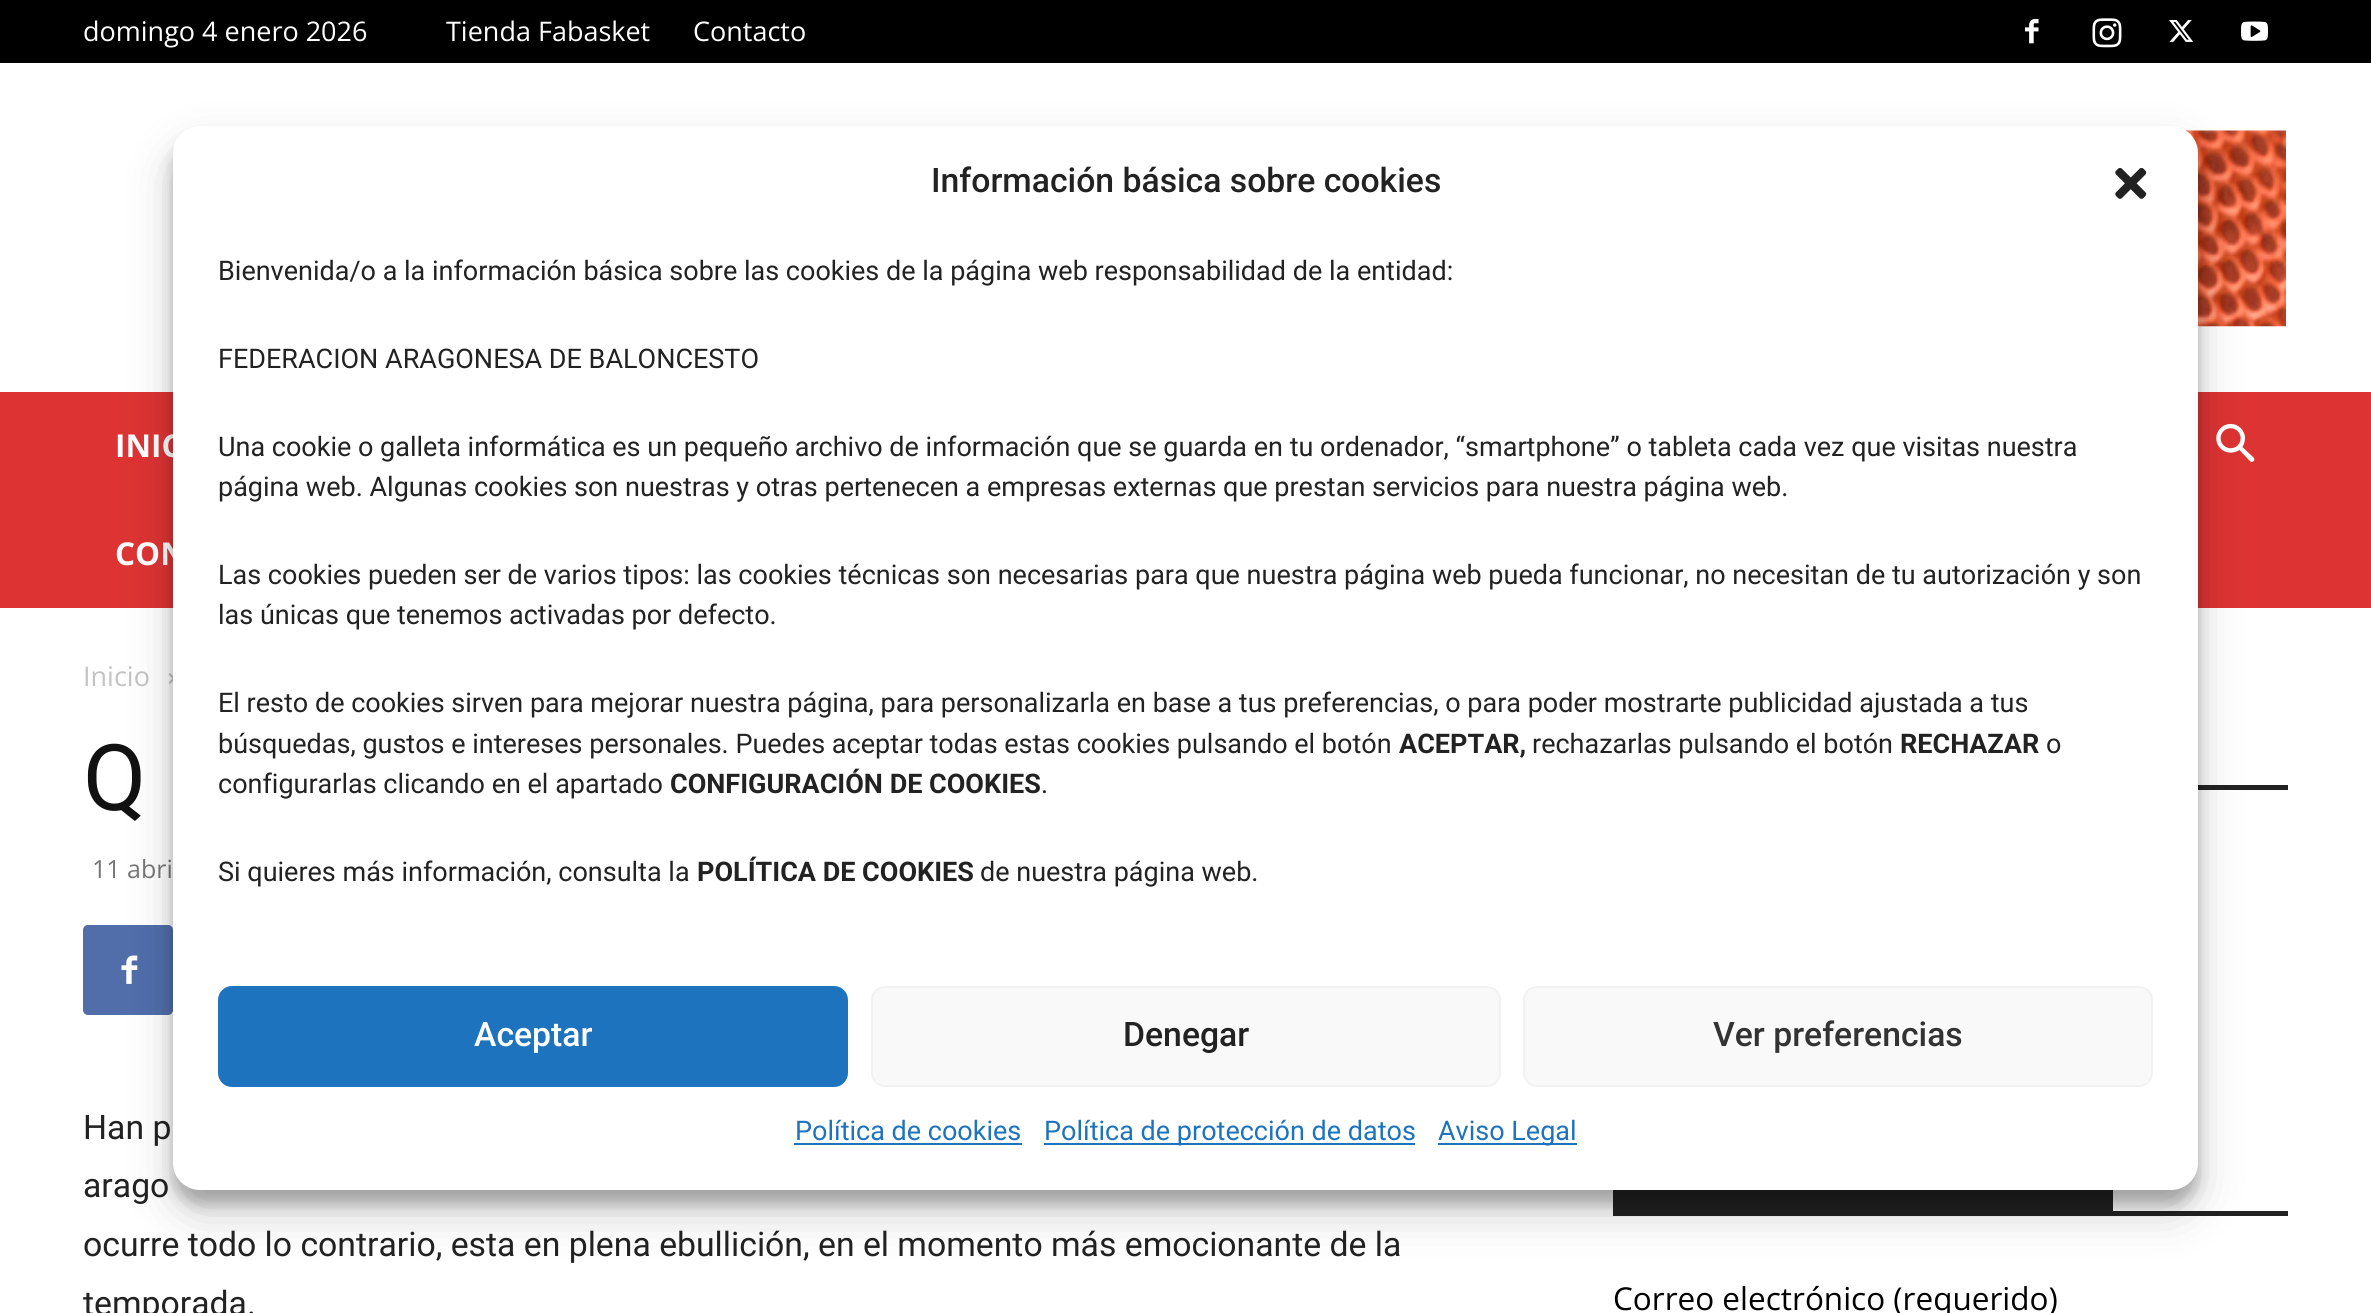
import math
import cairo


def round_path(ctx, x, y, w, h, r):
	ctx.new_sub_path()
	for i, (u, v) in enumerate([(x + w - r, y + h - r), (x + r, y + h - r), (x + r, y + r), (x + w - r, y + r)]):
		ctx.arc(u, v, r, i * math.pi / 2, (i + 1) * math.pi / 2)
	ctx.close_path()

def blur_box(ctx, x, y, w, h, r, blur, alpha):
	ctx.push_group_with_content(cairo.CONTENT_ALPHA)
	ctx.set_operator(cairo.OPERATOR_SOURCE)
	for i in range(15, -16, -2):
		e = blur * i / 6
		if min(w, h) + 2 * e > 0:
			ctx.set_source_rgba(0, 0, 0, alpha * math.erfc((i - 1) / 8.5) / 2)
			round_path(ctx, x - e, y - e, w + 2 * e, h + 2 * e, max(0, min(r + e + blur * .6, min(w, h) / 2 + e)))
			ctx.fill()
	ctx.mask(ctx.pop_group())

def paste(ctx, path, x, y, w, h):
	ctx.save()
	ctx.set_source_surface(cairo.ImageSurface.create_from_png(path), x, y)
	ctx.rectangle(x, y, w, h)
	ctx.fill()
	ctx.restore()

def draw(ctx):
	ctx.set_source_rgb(1, 1, 1)
	ctx.paint()
	ctx.set_source_rgb(0, 0, 0)
	ctx.rectangle(0, 0, 2371, 63)
	ctx.fill()
	ctx.select_font_face('Open Sans')
	ctx.set_font_size(27)
	ctx.set_source_rgb(1, 1, 1)
	for x, y, s in [
		(83, 41, 'domingo 4 enero 2026'),
		(446, 41, 'Tienda Fabasket'),
		(693, 41, 'Contacto'),
	]:
		ctx.move_to(x, y)
		ctx.show_text(s)
	paste(ctx, 'media/1.png', 2025, 19, 14, 25)
	paste(ctx, 'media/2.png', 2092, 18, 30, 30)
	paste(ctx, 'media/3.png', 2169, 20, 25, 22)
	paste(ctx, 'media/4.png', 2241, 21, 27, 20)
	paste(ctx, 'media/5.png', 2185, 130, 101, 197)
	ctx.set_source_rgb(0.867, 0.2, 0.2)
	ctx.rectangle(0, 392, 2371, 216)
	ctx.fill()
	ctx.select_font_face('Open Sans', cairo.FONT_SLANT_NORMAL, cairo.FONT_WEIGHT_BOLD)
	ctx.set_font_size(31.5)
	ctx.set_source_rgb(1, 1, 1)
	ctx.move_to(115, 457)
	ctx.show_text('INIC')
	ctx.move_to(115, 565)
	ctx.show_text('CON')
	paste(ctx, 'media/6.png', 2216, 423, 39, 39)
	ctx.select_font_face('Open Sans')
	ctx.set_font_size(27)
	ctx.set_source_rgb(0.765, 0.765, 0.765)
	ctx.move_to(83, 686)
	ctx.show_text('Inicio')
	paste(ctx, 'media/7.png', 168, 673, 5, 11)
	ctx.select_font_face('Roboto')
	ctx.set_font_size(92)
	ctx.set_source_rgb(0.067, 0.067, 0.067)
	ctx.move_to(83, 810)
	ctx.show_text('Q')
	ctx.select_font_face('Open Sans')
	ctx.set_font_size(25)
	ctx.set_source_rgb(0.463, 0.463, 0.463)
	ctx.move_to(92, 878)
	ctx.show_text('11 abri')
	ctx.set_source_rgb(0.318, 0.431, 0.671)
	round_path(ctx, 83, 925, 90, 90, 5)
	ctx.fill()
	paste(ctx, 'media/8.png', 121, 955, 17, 29)
	ctx.select_font_face('Roboto')
	ctx.set_font_size(33.75)
	ctx.set_source_rgb(0.133, 0.133, 0.133)
	for x, y, s in [
		(83, 1139, 'Han p'),
		(83, 1197, 'arago'),
		(83, 1256, 'ocurre todo lo contrario, esta en plena ebullición, en el momento más emocionante de la'),
		(83, 1315, 'temporada.'),
	]:
		ctx.move_to(x, y)
		ctx.show_text(s)
	ctx.rectangle(2198, 785, 90, 5)
	ctx.rectangle(1613, 1211, 675, 5)
	ctx.rectangle(1613, 1190, 500, 21)
	ctx.fill()
	ctx.select_font_face('Open Sans')
	ctx.set_font_size(31.5)
	ctx.set_source_rgb(0, 0, 0)
	ctx.move_to(1613, 1310)
	ctx.show_text('Correo electrónico (requerido)')
	ctx.set_source_rgb(0, 0, 0)
	blur_box(ctx, 173, 140, 2025, 1064, 27, 7, 0.23)
	blur_box(ctx, 173, 149, 2025, 1064, 27, 22.5, 0.19)
	ctx.set_source_rgb(1, 1, 1)
	round_path(ctx, 173, 126, 2025, 1064, 27)
	ctx.fill()
	ctx.select_font_face('Roboto Medium')
	ctx.set_font_size(33.75)
	ctx.set_source_rgb(0.133, 0.133, 0.133)
	ctx.move_to(931, 192)
	ctx.show_text('Información básica sobre cookies')
	paste(ctx, 'media/9.png', 2115, 167, 32, 32)
	ctx.select_font_face('Roboto')
	ctx.set_font_size(27)
	for x, y, s in [
		(218, 280, 'Bienvenida/o a la información básica sobre las cookies de la página web responsabilidad de la entidad:'),
		(218, 368, 'FEDERACION ARAGONESA DE BALONCESTO'),
		(218, 456, 'Una cookie o galleta informática es un pequeño archivo de información que se guarda en tu ordenador, “smartphone” o tableta cada vez que visitas nuestra'),
		(218, 496, 'página web. Algunas cookies son nuestras y otras pertenecen a empresas externas que prestan servicios para nuestra página web.'),
		(218, 584, 'Las cookies pueden ser de varios tipos: las cookies técnicas son necesarias para que nuestra página web pueda funcionar, no necesitan de tu autorización y son'),
		(218, 624, 'las únicas que tenemos activadas por defecto.'),
		(218, 712, 'El resto de cookies sirven para mejorar nuestra página, para personalizarla en base a tus preferencias, o para poder mostrarte publicidad ajustada a tus'),
		(218, 753, 'búsquedas, gustos e intereses personales. Puedes aceptar todas estas cookies pulsando el botón'),
	]:
		ctx.move_to(x, y)
		ctx.show_text(s)
	ctx.select_font_face('Roboto', cairo.FONT_SLANT_NORMAL, cairo.FONT_WEIGHT_BOLD)
	ctx.move_to(1399, 753)
	ctx.show_text('ACEPTAR,')
	ctx.select_font_face('Roboto')
	ctx.move_to(1532, 753)
	ctx.show_text('rechazarlas pulsando el botón')
	ctx.select_font_face('Roboto', cairo.FONT_SLANT_NORMAL, cairo.FONT_WEIGHT_BOLD)
	ctx.move_to(1900, 753)
	ctx.show_text('RECHAZAR')
	ctx.select_font_face('Roboto')
	ctx.move_to(2046, 753)
	ctx.show_text('o')
	ctx.move_to(218, 793)
	ctx.show_text('configurarlas clicando en el apartado')
	ctx.select_font_face('Roboto', cairo.FONT_SLANT_NORMAL, cairo.FONT_WEIGHT_BOLD)
	ctx.move_to(670, 793)
	ctx.show_text('CONFIGURACIÓN DE COOKIES')
	ctx.select_font_face('Roboto')
	ctx.move_to(1041, 793)
	ctx.show_text('.')
	ctx.move_to(218, 881)
	ctx.show_text('Si quieres más información, consulta la')
	ctx.select_font_face('Roboto', cairo.FONT_SLANT_NORMAL, cairo.FONT_WEIGHT_BOLD)
	ctx.move_to(697, 881)
	ctx.show_text('POLÍTICA DE COOKIES')
	ctx.select_font_face('Roboto')
	ctx.move_to(980, 881)
	ctx.show_text('de nuestra página web.')
	ctx.set_source_rgb(0.118, 0.451, 0.745)
	round_path(ctx, 219, 987, 628, 99, 13)
	ctx.fill_preserve()
	ctx.stroke()
	ctx.select_font_face('Roboto Medium')
	ctx.set_font_size(33.75)
	ctx.set_source_rgb(1, 1, 1)
	ctx.move_to(474, 1046)
	ctx.show_text('Aceptar')
	ctx.set_source_rgb(0.976, 0.976, 0.976)
	round_path(ctx, 872, 987, 628, 99, 13)
	ctx.fill_preserve()
	ctx.set_source_rgb(0.949, 0.949, 0.949)
	ctx.stroke()
	ctx.set_source_rgb(0.133, 0.133, 0.133)
	ctx.move_to(1123, 1046)
	ctx.show_text('Denegar')
	ctx.set_source_rgb(0.976, 0.976, 0.976)
	round_path(ctx, 1524, 987, 628, 99, 13)
	ctx.fill_preserve()
	ctx.set_source_rgb(0.949, 0.949, 0.949)
	ctx.stroke()
	ctx.set_source_rgb(0.2, 0.2, 0.2)
	ctx.move_to(1713, 1046)
	ctx.show_text('Ver preferencias')
	ctx.select_font_face('Roboto')
	ctx.set_font_size(27)
	ctx.set_source_rgb(0.118, 0.451, 0.745)
	ctx.move_to(795, 1140)
	ctx.show_text('Política de cookies')
	ctx.rectangle(794, 1143, 228, 2)
	ctx.fill()
	ctx.rectangle(1044, 1143, 371, 2)
	ctx.fill()
	ctx.move_to(1044, 1140)
	ctx.show_text('Política de protección de datos')
	ctx.rectangle(1438, 1143, 139, 2)
	ctx.fill()
	ctx.move_to(1438, 1140)
	ctx.show_text('Aviso Legal')


surface = cairo.ImageSurface(cairo.FORMAT_RGB24, 2371, 1313)
ctx = cairo.Context(surface)
options = cairo.FontOptions()
options.set_hint_metrics(cairo.HINT_METRICS_OFF)
options.set_hint_style(cairo.HINT_STYLE_NONE)
ctx.set_font_options(options)
ctx.set_miter_limit(4)
draw(ctx)
surface.write_to_png('image.png')
